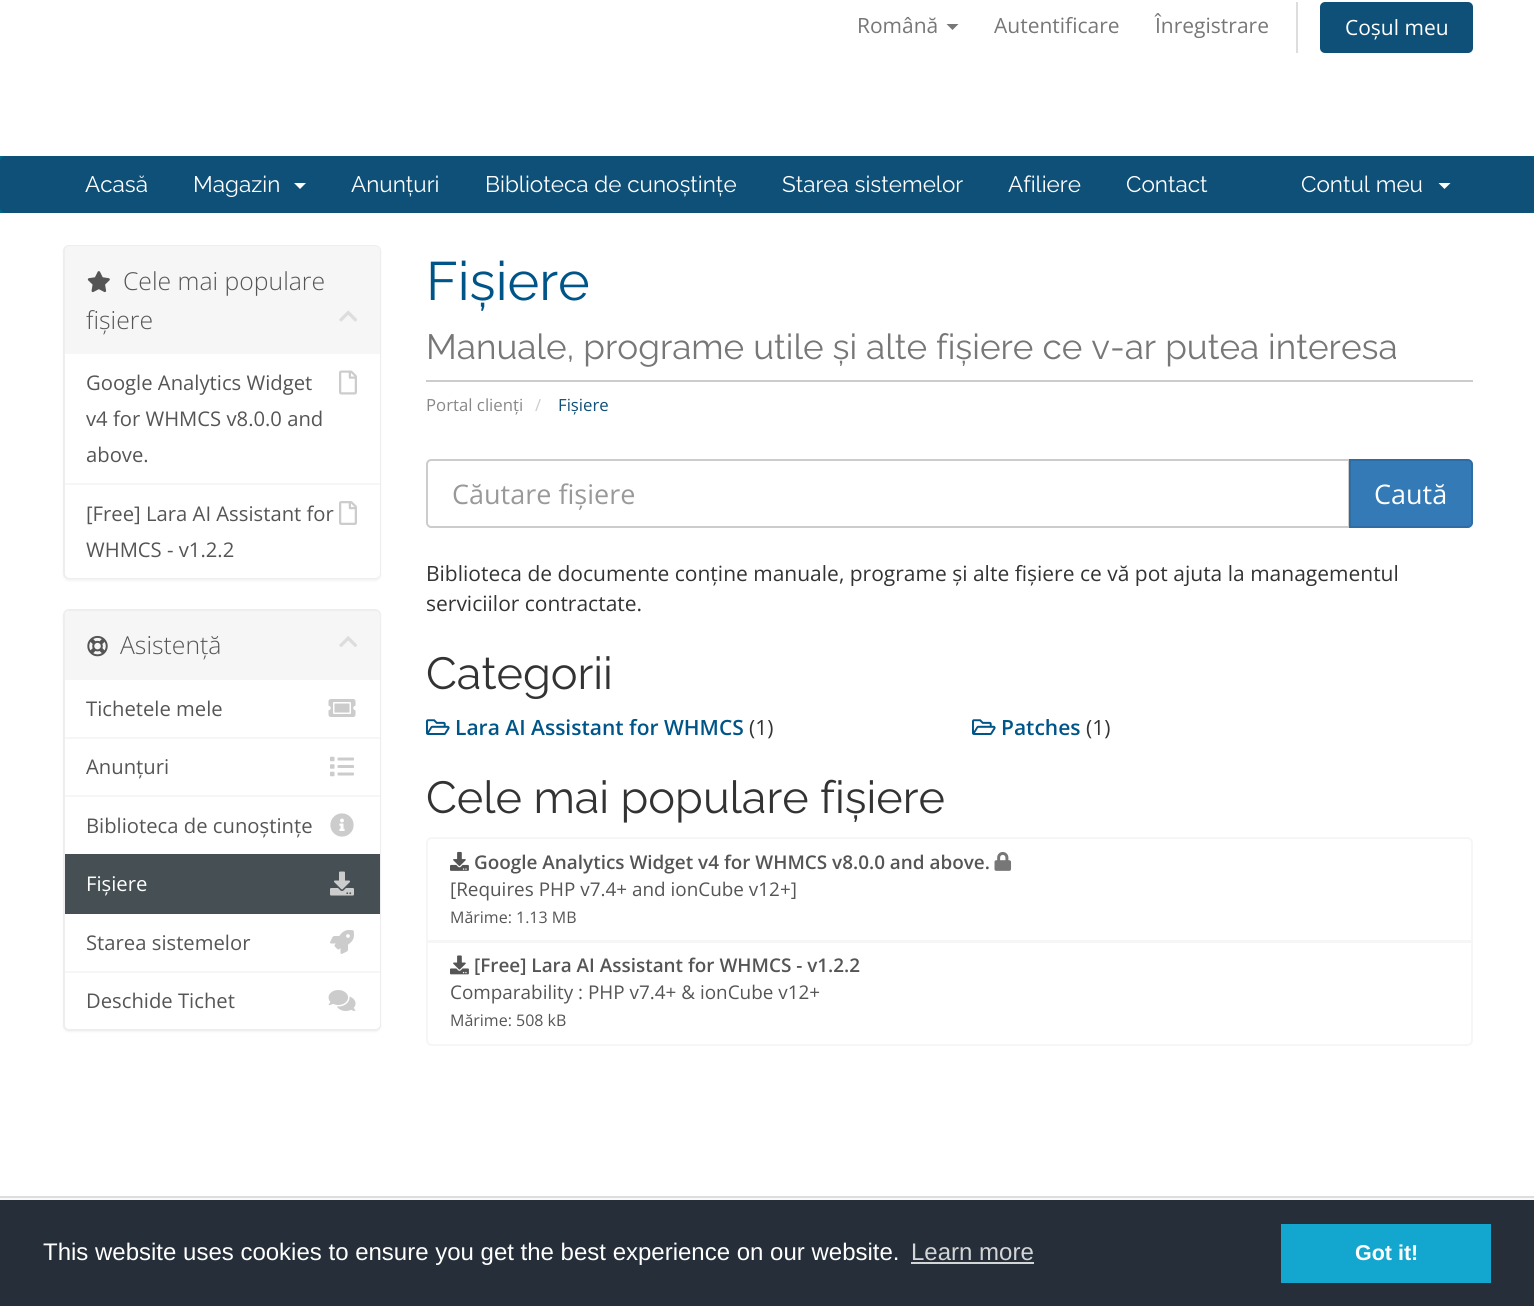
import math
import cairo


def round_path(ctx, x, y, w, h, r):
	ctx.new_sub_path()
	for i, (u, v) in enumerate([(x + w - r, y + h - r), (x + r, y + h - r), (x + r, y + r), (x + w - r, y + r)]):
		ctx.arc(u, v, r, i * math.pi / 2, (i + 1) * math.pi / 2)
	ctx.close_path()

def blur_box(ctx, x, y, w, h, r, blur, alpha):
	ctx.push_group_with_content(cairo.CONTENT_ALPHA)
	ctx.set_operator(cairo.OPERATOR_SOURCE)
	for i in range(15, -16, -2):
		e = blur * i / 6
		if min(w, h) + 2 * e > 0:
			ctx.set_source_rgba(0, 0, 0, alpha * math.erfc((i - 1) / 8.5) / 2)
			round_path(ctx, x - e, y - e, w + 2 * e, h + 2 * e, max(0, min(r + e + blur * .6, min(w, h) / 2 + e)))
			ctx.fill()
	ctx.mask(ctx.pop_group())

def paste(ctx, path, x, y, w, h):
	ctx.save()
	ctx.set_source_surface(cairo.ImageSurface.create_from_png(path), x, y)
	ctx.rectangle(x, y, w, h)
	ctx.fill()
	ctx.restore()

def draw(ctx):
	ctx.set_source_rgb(0.973, 0.973, 0.973)
	ctx.paint()
	ctx.set_source_rgb(1, 1, 1)
	ctx.rectangle(0, 0, 1534, 156)
	ctx.fill()
	ctx.select_font_face('Open Sans')
	ctx.set_font_size(21)
	ctx.set_source_rgb(0.467, 0.467, 0.467)
	ctx.move_to(857, 33)
	ctx.show_text('Română')
	ctx.new_path()
	ctx.move_to(946.5, 24)
	ctx.line_to(958.5, 24)
	ctx.line_to(952.5, 30)
	ctx.close_path()
	ctx.fill()
	ctx.move_to(994, 33)
	ctx.show_text('Autentificare')
	ctx.move_to(1155, 33)
	ctx.show_text('Înregistrare')
	ctx.set_source_rgb(0.867, 0.867, 0.867)
	ctx.rectangle(1296, 2, 2, 51)
	ctx.fill()
	ctx.set_source_rgb(0.055, 0.314, 0.467)
	round_path(ctx, 1320, 2, 153, 51, 5)
	ctx.fill()
	ctx.set_source_rgb(1, 1, 1)
	ctx.move_to(1345, 35)
	ctx.show_text('Coșul meu')
	ctx.set_source_rgb(0, 0.4, 0.529)
	ctx.rectangle(0, 156, 1534, 57)
	ctx.fill()
	ctx.set_source_rgb(0.055, 0.314, 0.467)
	round_path(ctx, 0, 156, 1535, 57, 6)
	ctx.fill()
	ctx.select_font_face('Raleway')
	ctx.set_font_size(22.5)
	ctx.set_source_rgb(1, 1, 1)
	ctx.move_to(85, 192)
	ctx.show_text('Acasă')
	ctx.move_to(193, 192)
	ctx.show_text('Magazin')
	ctx.new_path()
	ctx.move_to(294, 183)
	ctx.line_to(306, 183)
	ctx.line_to(300, 189)
	ctx.close_path()
	ctx.fill()
	for x, y, s in [
		(351, 192, 'Anunțuri'),
		(485, 192, 'Biblioteca de cunoștințe'),
		(782, 192, 'Starea sistemelor'),
		(1008, 192, 'Afiliere'),
		(1126, 192, 'Contact'),
		(1301, 192, 'Contul meu'),
	]:
		ctx.move_to(x, y)
		ctx.show_text(s)
	ctx.new_path()
	ctx.move_to(1438.5, 183)
	ctx.line_to(1450.5, 183)
	ctx.line_to(1444.5, 189)
	ctx.close_path()
	ctx.fill()
	ctx.rectangle(0, 213, 1534, 983)
	ctx.fill()
	ctx.set_source_rgb(0, 0, 0)
	blur_box(ctx, 63, 246, 318, 335, 6, 1, 0.05)
	round_path(ctx, 64, 246, 316, 332, 5)
	ctx.set_source_rgb(0.933, 0.933, 0.933)
	ctx.stroke()
	ctx.set_source_rgb(0.961, 0.961, 0.961)
	ctx.new_path()
	ctx.move_to(70, 246)
	ctx.line_to(375, 246)
	ctx.curve_to(378, 246, 380, 248, 380, 251)
	ctx.line_to(380, 354)
	ctx.line_to(65, 354)
	ctx.line_to(65, 251)
	ctx.curve_to(65, 248, 67, 246, 70, 246)
	ctx.close_path()
	ctx.fill()
	paste(ctx, 'media/1.png', 87, 271, 23, 22)
	ctx.select_font_face('Open Sans Light')
	ctx.set_font_size(24.75)
	ctx.set_source_rgb(0.333, 0.333, 0.333)
	ctx.move_to(123, 290)
	ctx.show_text('Cele mai populare')
	ctx.move_to(86, 329)
	ctx.show_text('fișiere')
	paste(ctx, 'media/2.png', 339, 310, 18, 12)
	ctx.set_source_rgb(1, 1, 1)
	ctx.rectangle(65, 354, 315, 129)
	ctx.fill()
	ctx.select_font_face('Open Sans')
	ctx.set_font_size(20.25)
	ctx.set_source_rgb(0.333, 0.333, 0.333)
	ctx.move_to(86, 390)
	ctx.show_text('Google Analytics Widget')
	paste(ctx, 'media/3.png', 339, 370, 18, 25)
	ctx.move_to(86, 426)
	ctx.show_text('v4 for WHMCS v8.0.0 and')
	ctx.move_to(86, 462)
	ctx.show_text('above.')
	ctx.set_source_rgb(1, 1, 1)
	ctx.new_path()
	ctx.move_to(65, 483)
	ctx.line_to(380, 483)
	ctx.line_to(380, 573)
	ctx.curve_to(380, 576, 378, 578, 375, 578)
	ctx.line_to(70, 578)
	ctx.curve_to(67, 578, 65, 576, 65, 573)
	ctx.close_path()
	ctx.fill()
	ctx.set_source_rgb(0.961, 0.961, 0.961)
	ctx.rectangle(65, 483, 315, 2)
	ctx.fill()
	ctx.set_source_rgb(0.333, 0.333, 0.333)
	ctx.move_to(86, 521)
	ctx.show_text('[Free] Lara AI Assistant for')
	paste(ctx, 'media/4.png', 339, 501, 18, 24)
	ctx.move_to(86, 557)
	ctx.show_text('WHMCS - v1.2.2')
	ctx.set_source_rgb(0, 0, 0)
	blur_box(ctx, 63, 611, 318, 421, 6, 1, 0.05)
	ctx.set_source_rgb(1, 1, 1)
	round_path(ctx, 64, 610, 316, 420, 5)
	ctx.fill_preserve()
	ctx.set_source_rgb(0.933, 0.933, 0.933)
	ctx.stroke()
	ctx.set_source_rgb(0.961, 0.961, 0.961)
	ctx.new_path()
	ctx.move_to(70, 611)
	ctx.line_to(375, 611)
	ctx.curve_to(378, 611, 380, 613, 380, 616)
	ctx.line_to(380, 680)
	ctx.line_to(65, 680)
	ctx.line_to(65, 616)
	ctx.curve_to(65, 613, 67, 611, 70, 611)
	ctx.close_path()
	ctx.fill()
	paste(ctx, 'media/5.png', 87, 635, 21, 22)
	ctx.select_font_face('Open Sans Light')
	ctx.set_font_size(24.75)
	ctx.set_source_rgb(0.333, 0.333, 0.333)
	ctx.move_to(120, 654)
	ctx.show_text('Asistență')
	paste(ctx, 'media/6.png', 339, 636, 18, 11)
	ctx.set_source_rgb(1, 1, 1)
	ctx.rectangle(379, 680, 1, 57)
	ctx.fill()
	ctx.select_font_face('Open Sans')
	ctx.set_font_size(20.25)
	ctx.set_source_rgb(0.333, 0.333, 0.333)
	ctx.move_to(86, 716)
	ctx.show_text('Tichetele mele')
	paste(ctx, 'media/7.png', 328, 699, 28, 18)
	ctx.set_source_rgb(1, 1, 1)
	ctx.rectangle(379, 739, 1, 56)
	ctx.fill()
	ctx.set_source_rgb(0.961, 0.961, 0.961)
	ctx.rectangle(65, 737, 315, 2)
	ctx.rectangle(65, 795, 315, 2)
	ctx.fill()
	ctx.set_source_rgb(0.333, 0.333, 0.333)
	ctx.move_to(86, 774)
	ctx.show_text('Anunțuri')
	paste(ctx, 'media/8.png', 330, 756, 24, 21)
	ctx.set_source_rgb(1, 1, 1)
	ctx.rectangle(379, 797, 1, 57)
	ctx.fill()
	ctx.set_source_rgb(0.333, 0.333, 0.333)
	ctx.move_to(86, 833)
	ctx.show_text('Biblioteca de cunoștințe')
	paste(ctx, 'media/9.png', 330, 813, 24, 24)
	ctx.set_source_rgb(0.275, 0.314, 0.329)
	ctx.rectangle(65, 854, 315, 60)
	ctx.fill()
	ctx.set_source_rgb(1, 1, 1)
	ctx.move_to(86, 891)
	ctx.show_text('Fișiere')
	paste(ctx, 'media/10.png', 330, 871, 24, 25)
	ctx.rectangle(379, 914, 1, 57)
	ctx.fill()
	ctx.set_source_rgb(0.333, 0.333, 0.333)
	ctx.move_to(86, 950)
	ctx.show_text('Starea sistemelor')
	paste(ctx, 'media/11.png', 330, 930, 24, 24)
	ctx.set_source_rgb(1, 1, 1)
	ctx.new_path()
	ctx.move_to(65, 971)
	ctx.line_to(380, 971)
	ctx.line_to(380, 1024)
	ctx.curve_to(380, 1027, 378, 1029, 375, 1029)
	ctx.line_to(70, 1029)
	ctx.curve_to(67, 1029, 65, 1027, 65, 1024)
	ctx.close_path()
	ctx.fill()
	ctx.set_source_rgb(0.961, 0.961, 0.961)
	ctx.rectangle(65, 971, 315, 2)
	ctx.fill()
	ctx.set_source_rgb(0.333, 0.333, 0.333)
	ctx.move_to(86, 1008)
	ctx.show_text('Deschide Tichet')
	paste(ctx, 'media/12.png', 328, 990, 28, 21)
	ctx.set_source_rgb(0.8, 0.8, 0.8)
	ctx.rectangle(426, 380, 1047, 2)
	ctx.fill()
	ctx.select_font_face('Raleway')
	ctx.set_font_size(54)
	ctx.set_source_rgb(0, 0.333, 0.533)
	ctx.move_to(426, 300)
	ctx.show_text('Fișiere')
	ctx.set_font_size(35.1)
	ctx.set_source_rgb(0.467, 0.467, 0.467)
	ctx.move_to(426, 359)
	ctx.show_text('Manuale, programe utile și alte fișiere ce v-ar putea interesa')
	ctx.select_font_face('Open Sans')
	ctx.set_font_size(16.75)
	ctx.set_source_rgb(0.533, 0.533, 0.533)
	ctx.move_to(426, 411)
	ctx.show_text('Portal clienți')
	ctx.set_source_rgb(0.8, 0.8, 0.8)
	ctx.move_to(535, 411)
	ctx.show_text('/')
	ctx.set_source_rgb(0.055, 0.314, 0.467)
	ctx.move_to(558, 411)
	ctx.show_text('Fișiere')
	ctx.new_path()
	ctx.move_to(431, 460)
	ctx.line_to(1349, 460)
	ctx.line_to(1349, 527)
	ctx.line_to(431, 527)
	ctx.curve_to(429, 527, 427, 525, 427, 523)
	ctx.line_to(427, 464)
	ctx.curve_to(427, 462, 429, 460, 431, 460)
	ctx.close_path()
	ctx.set_source_rgb(0.8, 0.8, 0.8)
	ctx.stroke()
	ctx.set_font_size(27)
	ctx.set_source_rgb(0.6, 0.6, 0.6)
	ctx.move_to(452, 504)
	ctx.show_text('Căutare fișiere')
	ctx.set_source_rgb(0.2, 0.478, 0.718)
	ctx.new_path()
	ctx.move_to(1350, 460)
	ctx.line_to(1468, 460)
	ctx.curve_to(1470, 460, 1472, 462, 1472, 464)
	ctx.line_to(1472, 523)
	ctx.curve_to(1472, 525, 1470, 527, 1468, 527)
	ctx.line_to(1350, 527)
	ctx.close_path()
	ctx.fill_preserve()
	ctx.set_source_rgb(0.18, 0.427, 0.643)
	ctx.stroke()
	ctx.set_source_rgb(1, 1, 1)
	ctx.move_to(1374, 504)
	ctx.show_text('Caută')
	ctx.set_font_size(21)
	ctx.set_source_rgb(0.2, 0.2, 0.2)
	ctx.move_to(426, 581)
	ctx.show_text('Biblioteca de documente conține manuale, programe și alte fișiere ce vă pot ajuta la managementul')
	ctx.move_to(426, 611)
	ctx.show_text('serviciilor contractate.')
	ctx.select_font_face('Raleway')
	ctx.set_font_size(45)
	ctx.move_to(426, 689)
	ctx.show_text('Categorii')
	paste(ctx, 'media/13.png', 426, 719, 24, 16)
	ctx.select_font_face('Open Sans SemiBold')
	ctx.set_font_size(21)
	ctx.set_source_rgb(0, 0.333, 0.533)
	ctx.move_to(455, 735)
	ctx.show_text('Lara AI Assistant for WHMCS')
	ctx.select_font_face('Open Sans')
	ctx.set_source_rgb(0.2, 0.2, 0.2)
	ctx.move_to(749, 735)
	ctx.show_text('(1)')
	paste(ctx, 'media/13.png', 972, 719, 24, 16)
	ctx.select_font_face('Open Sans SemiBold')
	ctx.set_source_rgb(0, 0.333, 0.533)
	ctx.move_to(1001, 735)
	ctx.show_text('Patches')
	ctx.select_font_face('Open Sans')
	ctx.set_source_rgb(0.2, 0.2, 0.2)
	ctx.move_to(1086, 735)
	ctx.show_text('(1)')
	ctx.select_font_face('Raleway')
	ctx.set_font_size(45)
	ctx.move_to(426, 813)
	ctx.show_text('Cele mai populare fișiere')
	ctx.new_path()
	ctx.move_to(432, 838)
	ctx.line_to(1467, 838)
	ctx.curve_to(1470, 838, 1472, 840, 1472, 843)
	ctx.line_to(1472, 941)
	ctx.line_to(427, 941)
	ctx.line_to(427, 843)
	ctx.curve_to(427, 840, 429, 838, 432, 838)
	ctx.close_path()
	ctx.set_source_rgb(0.961, 0.961, 0.961)
	ctx.stroke()
	paste(ctx, 'media/14.png', 450, 851, 19, 20)
	ctx.select_font_face('Open Sans SemiBold')
	ctx.set_font_size(18.9)
	ctx.set_source_rgb(0.333, 0.333, 0.333)
	ctx.move_to(474, 869)
	ctx.show_text('Google Analytics Widget v4 for WHMCS v8.0.0 and above.')
	paste(ctx, 'media/15.png', 994, 852, 18, 19)
	ctx.select_font_face('Open Sans')
	ctx.move_to(450, 896)
	ctx.show_text('[Requires PHP v7.4+ and ionCube v12+]')
	ctx.set_font_size(16)
	ctx.move_to(450, 923)
	ctx.show_text('Mărime: 1.13 MB')
	ctx.set_source_rgb(1, 1, 1)
	ctx.new_path()
	ctx.move_to(427, 942)
	ctx.line_to(1472, 942)
	ctx.line_to(1472, 1040)
	ctx.curve_to(1472, 1043, 1470, 1045, 1467, 1045)
	ctx.line_to(432, 1045)
	ctx.curve_to(429, 1045, 427, 1043, 427, 1040)
	ctx.close_path()
	ctx.fill_preserve()
	ctx.set_source_rgb(0.961, 0.961, 0.961)
	ctx.stroke()
	paste(ctx, 'media/16.png', 450, 955, 19, 20)
	ctx.select_font_face('Open Sans SemiBold')
	ctx.set_font_size(18.9)
	ctx.set_source_rgb(0.333, 0.333, 0.333)
	ctx.move_to(474, 972)
	ctx.show_text('[Free] Lara AI Assistant for WHMCS - v1.2.2')
	ctx.select_font_face('Open Sans')
	ctx.move_to(450, 999)
	ctx.show_text('Comparability : PHP v7.4+ & ionCube v12+')
	ctx.set_font_size(16)
	ctx.move_to(450, 1026)
	ctx.show_text('Mărime: 508 kB')
	ctx.set_source_rgb(0.867, 0.867, 0.867)
	ctx.rectangle(0, 1196, 1534, 2)
	ctx.fill()
	ctx.set_source_rgb(0.145, 0.18, 0.224)
	ctx.rectangle(0, 1200, 1534, 106)
	ctx.fill()
	ctx.select_font_face('Liberation Sans')
	ctx.set_font_size(24)
	ctx.set_source_rgb(1, 1, 1)
	ctx.move_to(43, 1260)
	ctx.show_text('This website uses cookies to ensure you get the best experience on our website.')
	ctx.set_source_rgb(0.827, 0.835, 0.843)
	ctx.move_to(911, 1260)
	ctx.show_text('Learn more')
	ctx.rectangle(911, 1262, 123, 2)
	ctx.fill()
	ctx.set_source_rgb(0.078, 0.655, 0.816)
	ctx.rectangle(1281, 1224, 210, 59)
	ctx.fill()
	ctx.select_font_face('Liberation Sans', cairo.FONT_SLANT_NORMAL, cairo.FONT_WEIGHT_BOLD)
	ctx.set_font_size(21.5)
	ctx.set_source_rgb(1, 1, 1)
	ctx.move_to(1355, 1260)
	ctx.show_text('Got it!')


surface = cairo.ImageSurface(cairo.FORMAT_RGB24, 1534, 1306)
ctx = cairo.Context(surface)
options = cairo.FontOptions()
options.set_hint_metrics(cairo.HINT_METRICS_OFF)
options.set_hint_style(cairo.HINT_STYLE_NONE)
ctx.set_font_options(options)
ctx.set_miter_limit(4)
draw(ctx)
surface.write_to_png('image.png')
